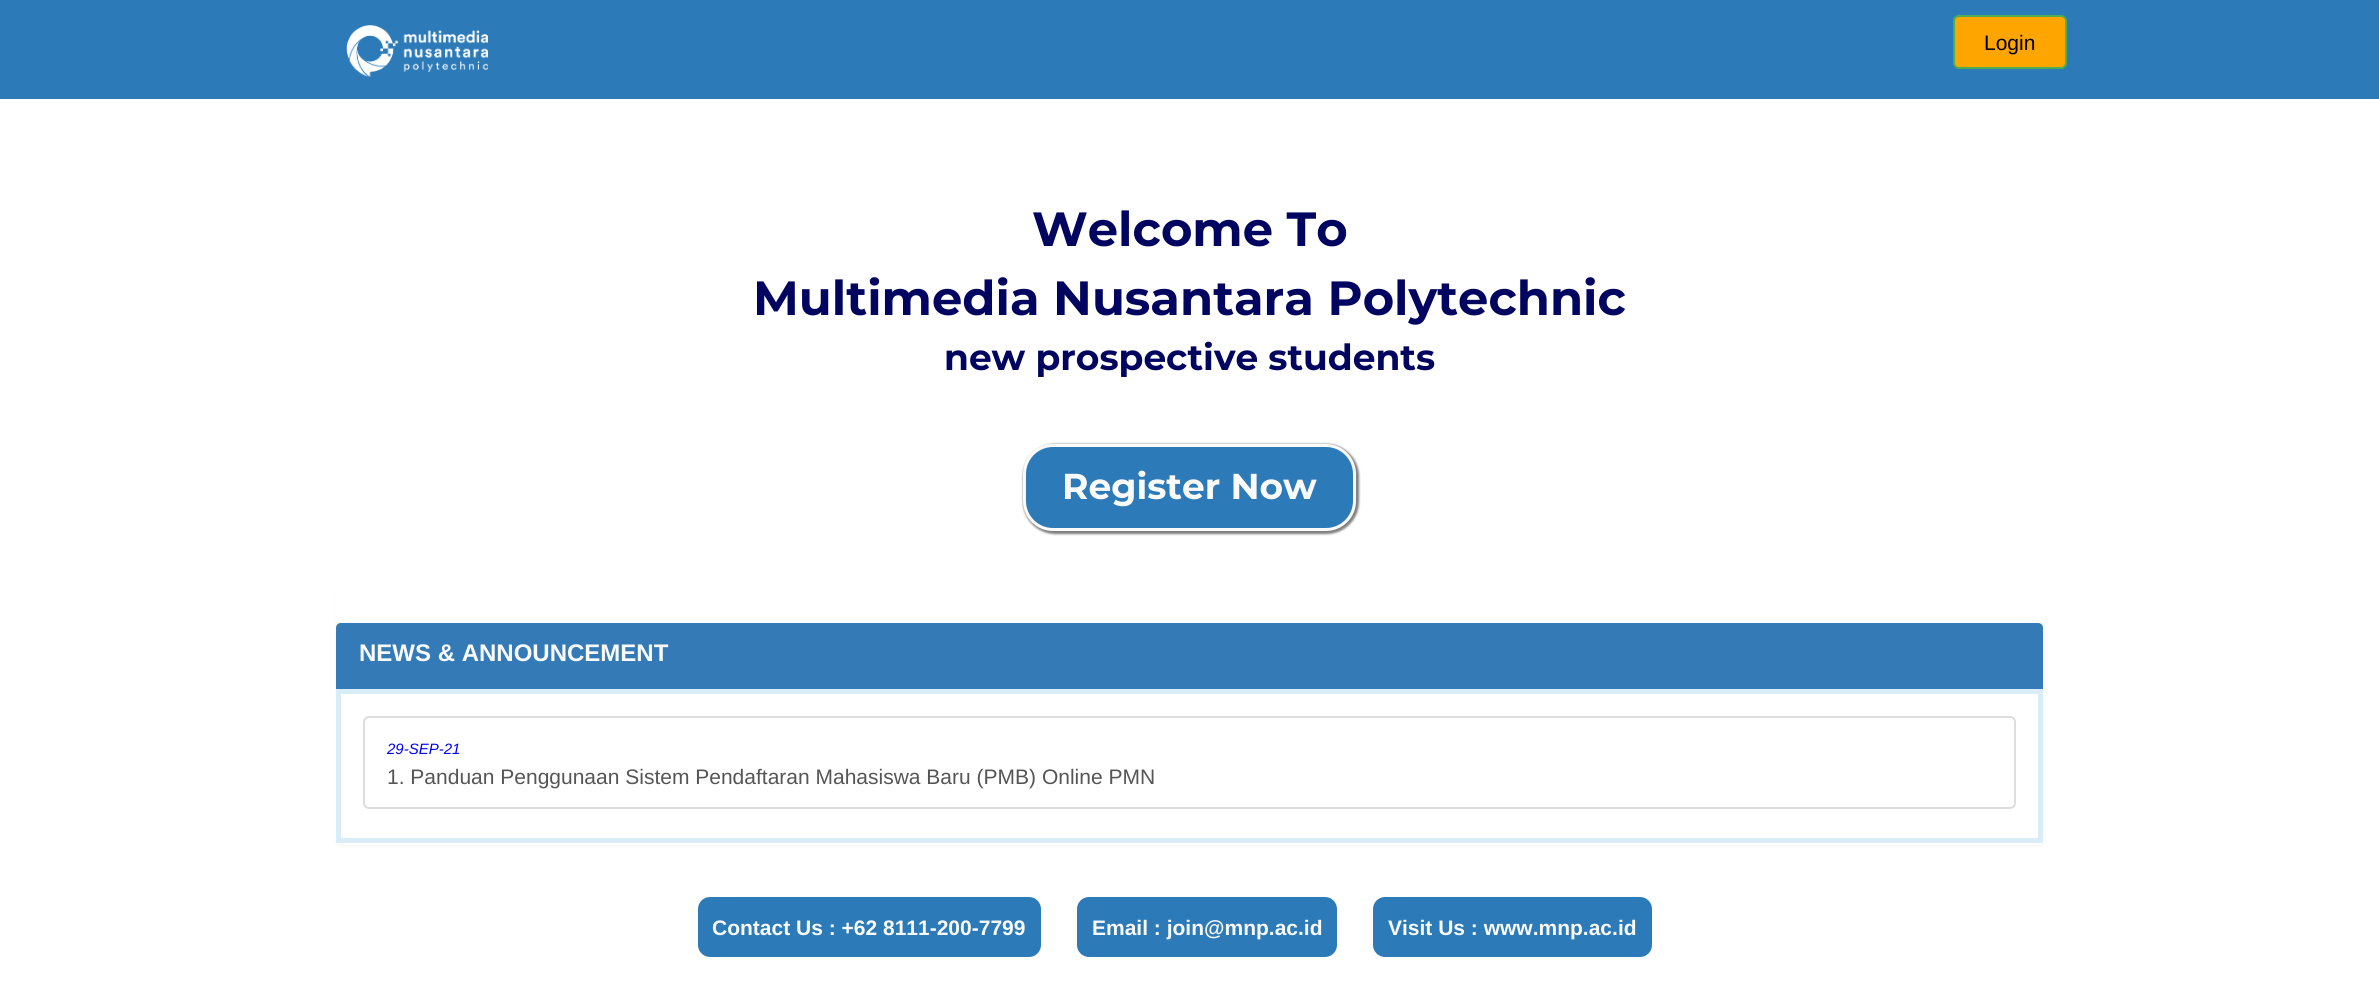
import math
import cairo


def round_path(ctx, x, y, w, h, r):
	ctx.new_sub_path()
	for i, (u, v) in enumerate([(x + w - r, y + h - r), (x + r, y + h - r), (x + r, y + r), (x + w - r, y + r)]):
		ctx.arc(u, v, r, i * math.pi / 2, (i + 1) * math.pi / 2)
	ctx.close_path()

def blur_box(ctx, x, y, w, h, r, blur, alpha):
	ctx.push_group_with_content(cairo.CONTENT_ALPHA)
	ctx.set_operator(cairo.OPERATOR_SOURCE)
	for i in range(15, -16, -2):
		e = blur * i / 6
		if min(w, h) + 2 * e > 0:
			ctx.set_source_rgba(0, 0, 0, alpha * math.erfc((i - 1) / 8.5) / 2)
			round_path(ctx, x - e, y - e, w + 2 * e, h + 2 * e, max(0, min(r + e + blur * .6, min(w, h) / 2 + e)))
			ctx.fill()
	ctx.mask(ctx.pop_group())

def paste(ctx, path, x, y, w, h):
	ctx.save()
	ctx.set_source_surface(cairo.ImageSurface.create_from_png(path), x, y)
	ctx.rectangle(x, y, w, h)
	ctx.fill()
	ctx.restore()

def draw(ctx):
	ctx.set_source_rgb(1, 1, 1)
	ctx.paint()
	ctx.set_source_rgb(0.173, 0.478, 0.722)
	ctx.rectangle(0, 0, 2379, 99)
	ctx.fill()
	paste(ctx, 'media/1.png', 346, 25, 142, 53)
	ctx.set_source_rgb(1, 0.647, 0)
	round_path(ctx, 1954, 16, 112, 52, 5)
	ctx.fill_preserve()
	ctx.set_source_rgb(0.298, 0.682, 0.298)
	ctx.stroke()
	ctx.select_font_face('Liberation Sans')
	ctx.set_font_size(21)
	ctx.set_source_rgb(0, 0, 0)
	ctx.move_to(1984, 50)
	ctx.show_text('Login')
	ctx.select_font_face('Montserrat', cairo.FONT_SLANT_NORMAL, cairo.FONT_WEIGHT_BOLD)
	ctx.set_font_size(48)
	ctx.set_source_rgb(0.008, 0.02, 0.373)
	ctx.move_to(1032, 246)
	ctx.show_text('Welcome To')
	ctx.move_to(753, 315)
	ctx.show_text('Multimedia Nusantara Polytechnic')
	ctx.set_font_size(36)
	ctx.move_to(944, 370)
	ctx.show_text('new prospective students')
	ctx.set_source_rgb(0.502, 0.502, 0.502)
	blur_box(ctx, 1023, 444, 336, 90, 32, 1, 1)
	ctx.set_source_rgb(0.173, 0.478, 0.722)
	round_path(ctx, 1024.5, 445.5, 330, 84, 28.5)
	ctx.fill_preserve()
	ctx.set_source_rgb(0.98, 0.98, 0.98)
	ctx.set_line_width(3)
	ctx.stroke()
	ctx.move_to(1062, 499)
	ctx.show_text('Register Now')
	ctx.set_source_rgb(0, 0, 0)
	blur_box(ctx, 335, 593, 1710, 253, 6, 1, 0.05)
	ctx.set_source_rgb(1, 1, 1)
	round_path(ctx, 335, 591, 1710, 254, 6)
	ctx.fill()
	ctx.set_source_rgb(0.2, 0.478, 0.718)
	ctx.new_path()
	ctx.move_to(341, 623)
	ctx.line_to(2038, 623)
	ctx.curve_to(2041, 623, 2043, 625, 2043, 628)
	ctx.line_to(2043, 689)
	ctx.line_to(336, 689)
	ctx.line_to(336, 628)
	ctx.curve_to(336, 625, 338, 623, 341, 623)
	ctx.close_path()
	ctx.fill()
	ctx.select_font_face('Liberation Sans', cairo.FONT_SLANT_NORMAL, cairo.FONT_WEIGHT_BOLD)
	ctx.set_font_size(24)
	ctx.set_source_rgb(0.98, 0.98, 0.98)
	ctx.move_to(359, 661)
	ctx.show_text('NEWS & ANNOUNCEMENT')
	ctx.rectangle(338.5, 691.5, 1702, 149)
	ctx.set_source_rgb(0.851, 0.929, 0.969)
	ctx.set_line_width(5)
	ctx.stroke()
	round_path(ctx, 364, 717, 1651, 91, 5)
	ctx.set_source_rgb(0.867, 0.867, 0.867)
	ctx.set_line_width(2)
	ctx.stroke()
	ctx.select_font_face('Liberation Sans', cairo.FONT_SLANT_ITALIC)
	ctx.set_font_size(15)
	ctx.set_source_rgb(0, 0, 1)
	ctx.move_to(387, 754)
	ctx.show_text('29-SEP-21')
	ctx.select_font_face('Liberation Sans')
	ctx.set_font_size(21)
	ctx.set_source_rgb(0.333, 0.333, 0.333)
	ctx.move_to(387, 784)
	ctx.show_text('1. Panduan Penggunaan Sistem Pendaftaran Mahasiswa Baru (PMB) Online PMN')
	ctx.set_source_rgb(0.173, 0.478, 0.722)
	round_path(ctx, 698, 897, 343, 60, 12)
	ctx.fill()
	ctx.select_font_face('Liberation Sans', cairo.FONT_SLANT_NORMAL, cairo.FONT_WEIGHT_BOLD)
	ctx.set_source_rgb(0.98, 0.98, 0.98)
	ctx.move_to(712, 935)
	ctx.show_text('Contact Us : +62 8111-200-7799')
	ctx.set_source_rgb(0.173, 0.478, 0.722)
	round_path(ctx, 1077, 897, 260, 60, 12)
	ctx.fill()
	ctx.set_source_rgb(0.98, 0.98, 0.98)
	ctx.move_to(1092, 935)
	ctx.show_text('Email : join@mnp.ac.id')
	ctx.set_source_rgb(0.173, 0.478, 0.722)
	round_path(ctx, 1373, 897, 279, 60, 12)
	ctx.fill()
	ctx.set_source_rgb(0.98, 0.98, 0.98)
	ctx.move_to(1388, 935)
	ctx.show_text('Visit Us : www.mnp.ac.id')


surface = cairo.ImageSurface(cairo.FORMAT_RGB24, 2379, 987)
ctx = cairo.Context(surface)
options = cairo.FontOptions()
options.set_hint_metrics(cairo.HINT_METRICS_OFF)
options.set_hint_style(cairo.HINT_STYLE_NONE)
ctx.set_font_options(options)
ctx.set_miter_limit(4)
draw(ctx)
surface.write_to_png('image.png')
